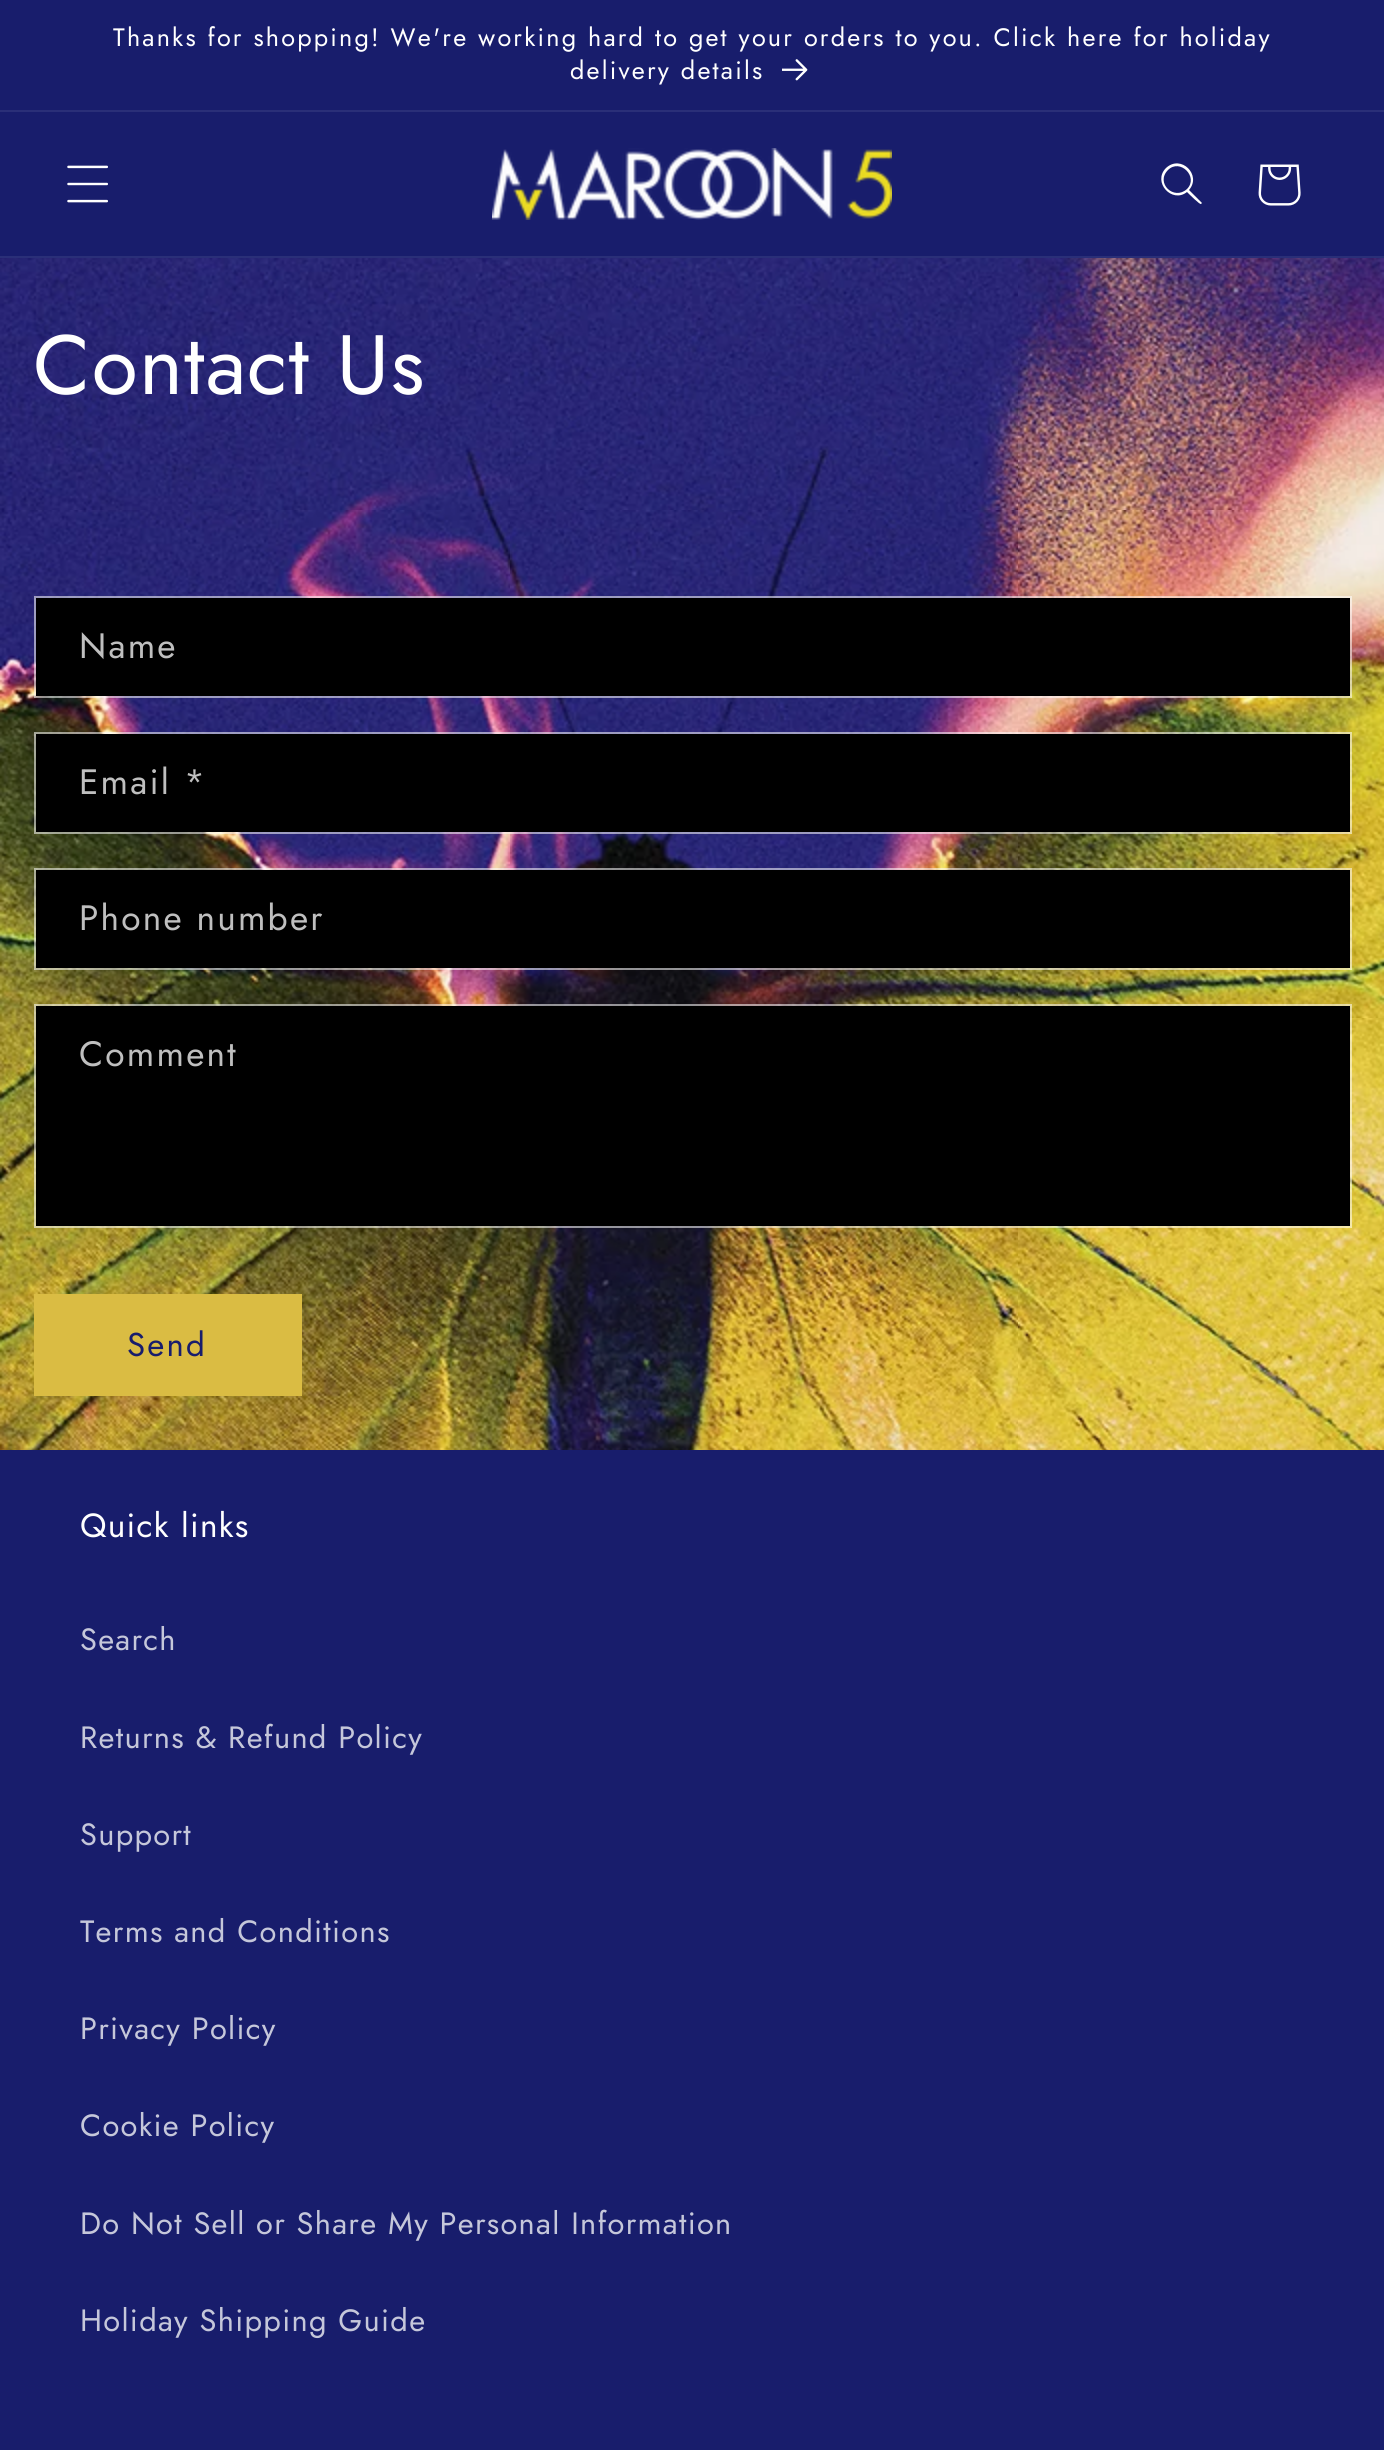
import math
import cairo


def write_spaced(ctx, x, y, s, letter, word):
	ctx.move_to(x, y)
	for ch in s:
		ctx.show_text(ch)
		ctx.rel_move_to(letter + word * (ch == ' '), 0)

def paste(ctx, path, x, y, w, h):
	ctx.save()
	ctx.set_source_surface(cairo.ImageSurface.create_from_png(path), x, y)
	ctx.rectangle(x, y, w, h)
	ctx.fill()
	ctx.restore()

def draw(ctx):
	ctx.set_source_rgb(1, 1, 1)
	ctx.paint()
	paste(ctx, 'media/1.png', 0, 258, 1384, 1192)
	ctx.set_source_rgb(0.094, 0.114, 0.424)
	ctx.rectangle(0, 0, 1384, 110)
	ctx.fill()
	ctx.set_source_rgb(0.165, 0.184, 0.471)
	ctx.rectangle(0, 110, 1384, 2)
	ctx.fill()
	ctx.select_font_face('Jost')
	ctx.set_font_size(25.2)
	ctx.set_source_rgb(1, 1, 1)
	write_spaced(ctx, 113, 46, 'Thanks for shopping! We\'re working hard to get your orders to you. Click here for holiday', 2.2, 0)
	write_spaced(ctx, 570, 79, 'delivery details', 2.2, 0)
	paste(ctx, 'media/2.png', 782, 59, 26, 22)
	ctx.set_source_rgb(0.094, 0.114, 0.424)
	ctx.rectangle(0, 112, 1384, 144)
	ctx.fill()
	ctx.set_source_rgb(0.165, 0.184, 0.471)
	ctx.rectangle(0, 256, 1384, 2)
	ctx.fill()
	paste(ctx, 'media/3.png', 67, 165, 41, 38)
	paste(ctx, 'media/4.png', 492, 148, 400, 72)
	ctx.set_source_rgb(1, 1, 1)
	ctx.set_fill_rule(cairo.FILL_RULE_EVEN_ODD)
	ctx.new_path()
	ctx.move_to(1187, 189)
	ctx.curve_to(1174, 201, 1155, 183, 1168, 170)
	ctx.curve_to(1180, 158, 1199, 177, 1187, 189)
	ctx.close_path()
	ctx.move_to(1187, 192)
	ctx.curve_to(1172, 204, 1152, 182, 1166, 168)
	ctx.curve_to(1181, 154, 1202, 175, 1189, 190)
	ctx.line_to(1202, 203)
	ctx.line_to(1201, 204)
	ctx.curve_to(1200, 205, 1189, 194, 1187, 192)
	ctx.close_path()
	ctx.fill()
	paste(ctx, 'media/5.png', 1258, 164, 43, 42)
	ctx.set_font_size(84)
	write_spaced(ctx, 33, 394, 'Contact Us', 1.25, 0)
	ctx.set_source_rgb(0, 0, 0)
	ctx.rectangle(36, 598, 1314, 98)
	ctx.fill()
	ctx.rectangle(35, 597, 1316, 100)
	ctx.set_source_rgba(1, 1, 1, 0.55)
	ctx.stroke()
	ctx.set_font_size(35.25)
	ctx.set_source_rgb(0.749, 0.749, 0.749)
	write_spaced(ctx, 79, 658, 'Name', 2.2, 0)
	ctx.set_source_rgb(0, 0, 0)
	ctx.rectangle(36, 734, 1314, 98)
	ctx.fill()
	ctx.rectangle(35, 733, 1316, 100)
	ctx.set_source_rgba(1, 1, 1, 0.55)
	ctx.stroke()
	ctx.set_source_rgb(0.749, 0.749, 0.749)
	write_spaced(ctx, 79, 794, 'Email *', 2.2, 0)
	ctx.set_source_rgb(0, 0, 0)
	ctx.rectangle(36, 870, 1314, 98)
	ctx.fill()
	ctx.rectangle(35, 869, 1316, 100)
	ctx.set_source_rgba(1, 1, 1, 0.55)
	ctx.stroke()
	ctx.set_source_rgb(0.749, 0.749, 0.749)
	write_spaced(ctx, 79, 930, 'Phone number', 2.2, 0)
	ctx.set_source_rgb(0, 0, 0)
	ctx.rectangle(36, 1006, 1314, 220)
	ctx.fill()
	ctx.rectangle(35, 1005, 1316, 222)
	ctx.set_source_rgba(1, 1, 1, 0.55)
	ctx.stroke()
	ctx.set_source_rgb(0.749, 0.749, 0.749)
	write_spaced(ctx, 79, 1066, 'Comment', 2.2, 0)
	ctx.set_source_rgb(0.855, 0.737, 0.263)
	ctx.rectangle(34, 1294, 268, 102)
	ctx.fill()
	ctx.set_font_size(33)
	ctx.set_source_rgb(0.094, 0.114, 0.424)
	write_spaced(ctx, 127, 1356, 'Send', 2.2, 0)
	ctx.rectangle(0, 1450, 1384, 1000)
	ctx.fill()
	ctx.set_font_size(33.5)
	ctx.set_source_rgb(1, 1, 1)
	write_spaced(ctx, 80, 1537, 'Quick links', 1.25, 0)
	ctx.set_font_size(30.8)
	ctx.set_source_rgb(0.773, 0.78, 0.855)
	for x, y, s in [
		(80, 1650, 'Search'),
		(80, 1748, 'Returns & Refund Policy'),
		(80, 1845, 'Support'),
		(80, 1942, 'Terms and Conditions'),
		(80, 2039, 'Privacy Policy'),
		(80, 2136, 'Cookie Policy'),
		(80, 2234, 'Do Not Sell or Share My Personal Information'),
		(80, 2331, 'Holiday Shipping Guide'),
	]:
		write_spaced(ctx, x, y, s, 1.3, 0)


surface = cairo.ImageSurface(cairo.FORMAT_RGB24, 1384, 2450)
ctx = cairo.Context(surface)
options = cairo.FontOptions()
options.set_hint_metrics(cairo.HINT_METRICS_OFF)
options.set_hint_style(cairo.HINT_STYLE_NONE)
ctx.set_font_options(options)
ctx.set_miter_limit(4)
draw(ctx)
surface.write_to_png('image.png')
